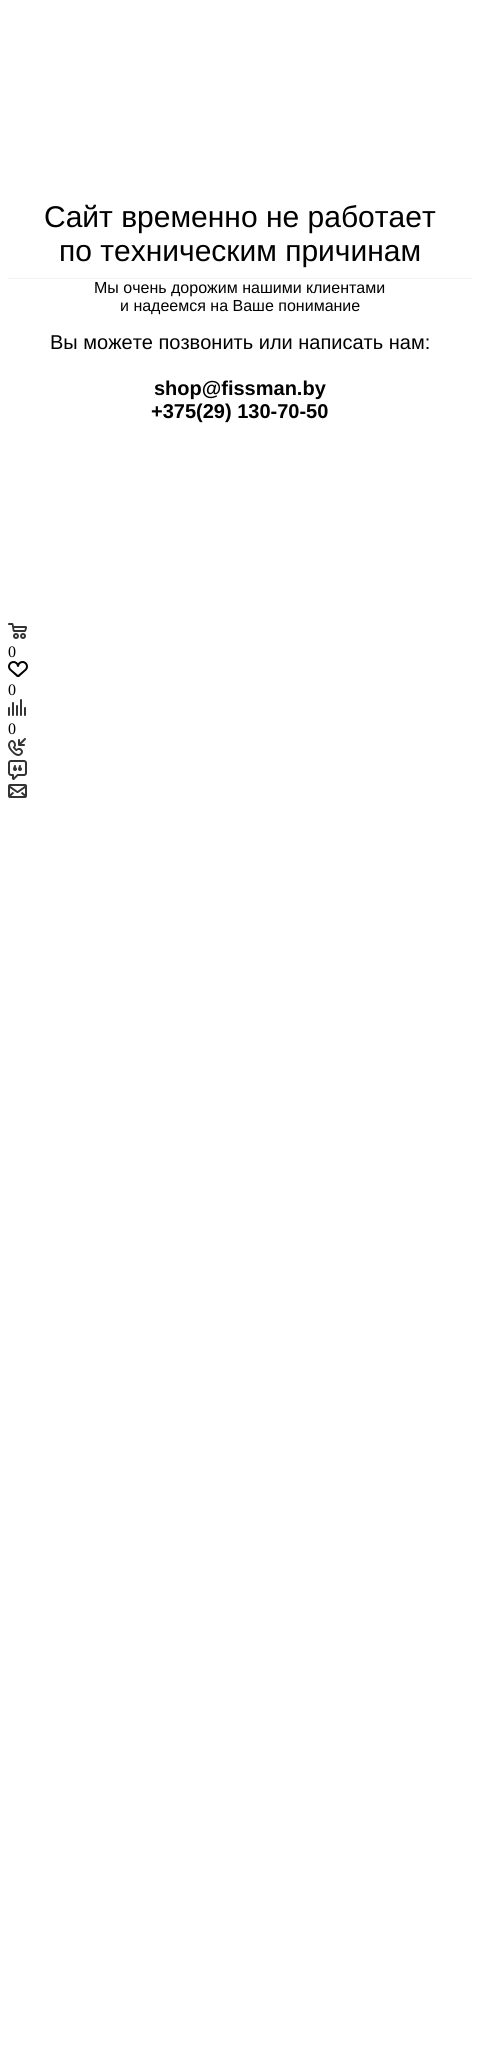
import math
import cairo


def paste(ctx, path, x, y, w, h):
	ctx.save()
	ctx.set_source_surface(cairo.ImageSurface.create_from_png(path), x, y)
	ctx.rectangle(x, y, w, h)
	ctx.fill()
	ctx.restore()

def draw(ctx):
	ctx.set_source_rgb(1, 1, 1)
	ctx.paint()
	ctx.select_font_face('Liberation Sans')
	ctx.set_font_size(30)
	ctx.set_source_rgb(0, 0, 0)
	ctx.move_to(44, 227)
	ctx.show_text('Сайт временно не работает')
	ctx.move_to(59, 261)
	ctx.show_text('по техническим причинам')
	ctx.set_source_rgb(0.949, 0.949, 0.949)
	ctx.rectangle(8, 278, 464, 1)
	ctx.fill()
	ctx.set_font_size(16)
	ctx.set_source_rgb(0, 0, 0)
	ctx.move_to(94, 293)
	ctx.show_text('Мы очень дорожим нашими клиентами')
	ctx.move_to(120, 311)
	ctx.show_text('и надеемся на Ваше понимание')
	ctx.set_font_size(20)
	ctx.move_to(50, 349)
	ctx.show_text('Вы можете позвонить или написать нам:')
	ctx.select_font_face('Liberation Sans', cairo.FONT_SLANT_NORMAL, cairo.FONT_WEIGHT_BOLD)
	ctx.move_to(154, 395)
	ctx.show_text('shop@fissman.by')
	ctx.move_to(151, 418)
	ctx.show_text('+375(29) 130-70-50')
	paste(ctx, 'media/1.png', 8, 623, 19, 16)
	ctx.select_font_face('Liberation Serif')
	ctx.set_font_size(16)
	ctx.move_to(8, 657)
	ctx.show_text('0')
	paste(ctx, 'media/2.png', 8, 661, 20, 16)
	ctx.move_to(8, 695)
	ctx.show_text('0')
	paste(ctx, 'media/3.png', 8, 699, 18, 17)
	ctx.move_to(8, 734)
	ctx.show_text('0')
	paste(ctx, 'media/4.png', 8, 738, 18, 18)
	paste(ctx, 'media/5.png', 8, 760, 19, 20)
	paste(ctx, 'media/6.png', 8, 784, 19, 14)


surface = cairo.ImageSurface(cairo.FORMAT_RGB24, 480, 2063)
ctx = cairo.Context(surface)
options = cairo.FontOptions()
options.set_hint_metrics(cairo.HINT_METRICS_OFF)
options.set_hint_style(cairo.HINT_STYLE_NONE)
ctx.set_font_options(options)
ctx.set_miter_limit(4)
draw(ctx)
surface.write_to_png('image.png')
